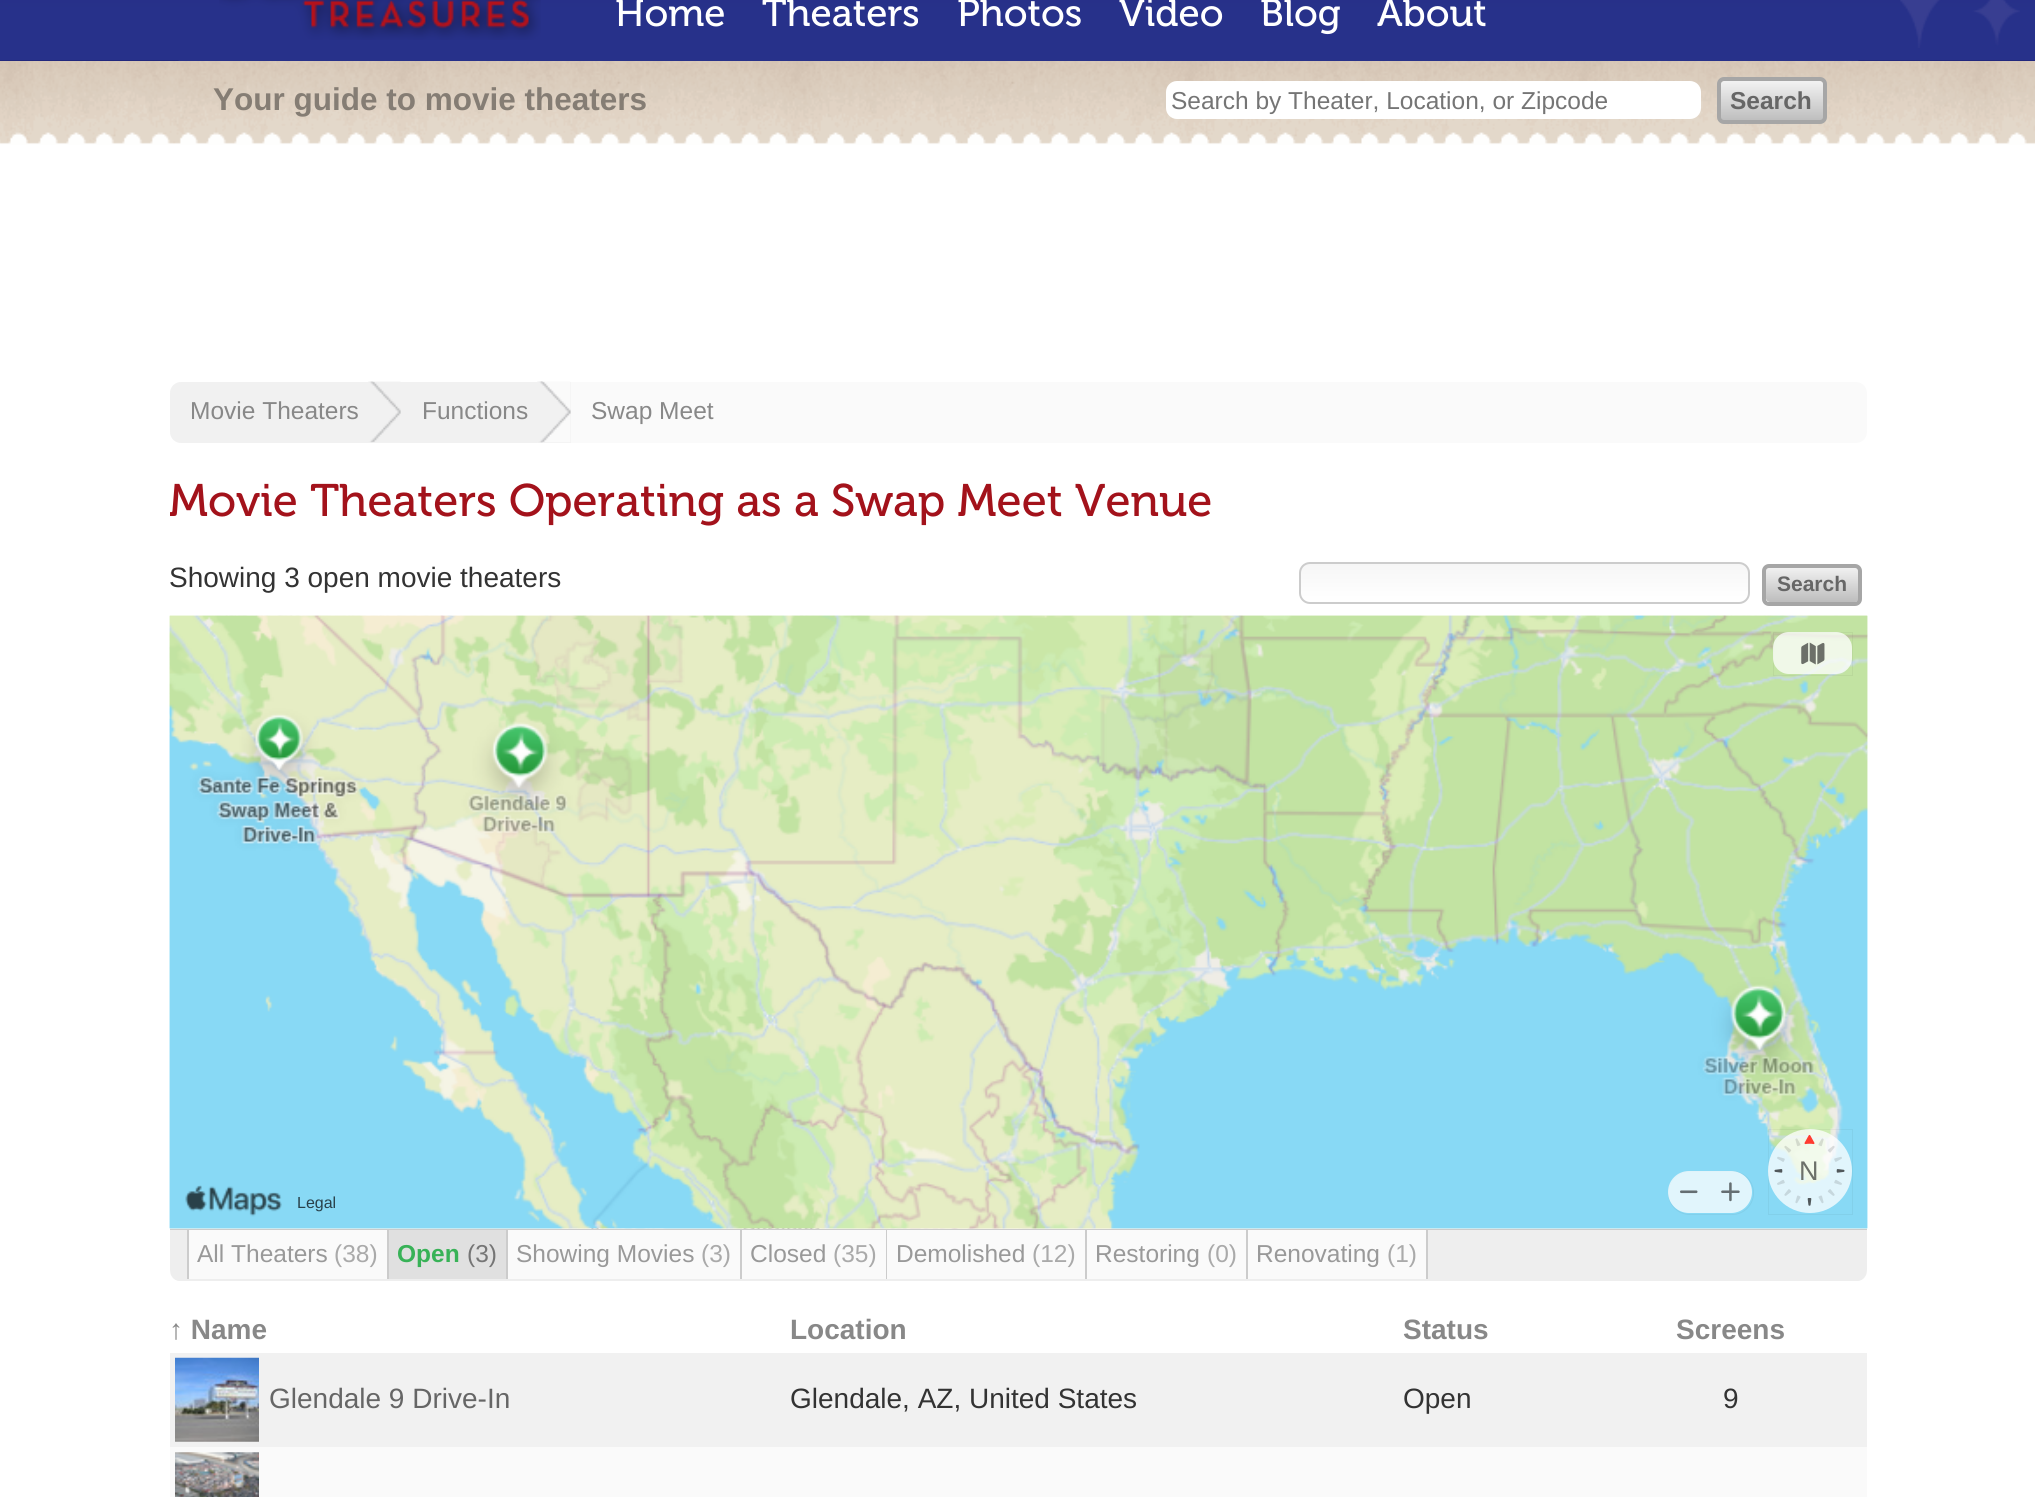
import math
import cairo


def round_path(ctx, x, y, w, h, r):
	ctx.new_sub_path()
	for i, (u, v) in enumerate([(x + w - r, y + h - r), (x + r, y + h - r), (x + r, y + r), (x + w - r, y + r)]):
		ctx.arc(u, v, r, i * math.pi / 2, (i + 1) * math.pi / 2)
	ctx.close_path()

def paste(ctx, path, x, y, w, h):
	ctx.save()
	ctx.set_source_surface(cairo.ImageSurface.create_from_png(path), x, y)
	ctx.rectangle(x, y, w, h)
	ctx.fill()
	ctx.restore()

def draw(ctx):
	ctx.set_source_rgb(1, 1, 1)
	ctx.paint()
	paste(ctx, 'media/1.png', 0, 0, 2035, 61)
	paste(ctx, 'media/2.png', 178, 60, 1681, 1)
	paste(ctx, 'media/3.png', 219, 0, 322, 40)
	ctx.select_font_face('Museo')
	ctx.set_font_size(38.5)
	ctx.set_source_rgb(1, 1, 1)
	for x, y, s in [
		(615, 26, 'Home'),
		(762, 26, 'Theaters'),
		(957, 26, 'Photos'),
		(1119, 26, 'Video'),
		(1260, 26, 'Blog'),
		(1377, 26, 'About'),
	]:
		ctx.move_to(x, y)
		ctx.show_text(s)
	paste(ctx, 'media/4.png', 1900, 0, 120, 48)
	paste(ctx, 'media/5.png', 0, 61, 2035, 84)
	ctx.select_font_face('Liberation Sans', cairo.FONT_SLANT_NORMAL, cairo.FONT_WEIGHT_BOLD)
	ctx.set_font_size(31.5)
	ctx.set_source_rgb(0.522, 0.49, 0.455)
	ctx.move_to(213, 110)
	ctx.show_text('Your guide to movie theaters')
	ctx.set_source_rgb(1, 1, 1)
	round_path(ctx, 1166, 81, 535, 38, 11)
	ctx.fill()
	ctx.select_font_face('Liberation Sans')
	ctx.set_font_size(24.5)
	ctx.set_source_rgb(0.459, 0.459, 0.459)
	ctx.move_to(1171, 109)
	ctx.show_text('Search by Theater, Location, or Zipcode')
	gradient = cairo.LinearGradient(1772, 81, 1772, 121)
	gradient.add_color_stop_rgba(0, 0.949, 0.949, 0.949, 1)
	gradient.add_color_stop_rgba(1, 0.741, 0.741, 0.741, 1)
	ctx.set_source(gradient)
	round_path(ctx, 1720, 81, 104, 40, 4)
	ctx.fill()
	round_path(ctx, 1719, 79, 106, 43, 5)
	ctx.set_source_rgb(0.651, 0.651, 0.651)
	ctx.set_line_width(4)
	ctx.stroke()
	ctx.select_font_face('Liberation Sans', cairo.FONT_SLANT_NORMAL, cairo.FONT_WEIGHT_BOLD)
	ctx.set_source_rgb(0.4, 0.4, 0.4)
	ctx.move_to(1730, 109)
	ctx.show_text('Search')
	ctx.set_source_rgb(0.98, 0.98, 0.98)
	round_path(ctx, 170, 382, 1697, 61, 11)
	ctx.fill()
	ctx.set_source_rgb(0.945, 0.945, 0.945)
	ctx.new_path()
	ctx.move_to(181, 382)
	ctx.line_to(401, 382)
	ctx.line_to(401, 443)
	ctx.line_to(181, 443)
	ctx.curve_to(175, 443, 170, 438, 170, 432)
	ctx.line_to(170, 393)
	ctx.curve_to(170, 387, 175, 382, 181, 382)
	ctx.close_path()
	ctx.fill()
	paste(ctx, 'media/6.png', 368, 381, 33, 62)
	ctx.select_font_face('Liberation Sans')
	ctx.set_source_rgb(0.533, 0.533, 0.533)
	ctx.move_to(190, 419)
	ctx.show_text('Movie Theaters')
	ctx.set_source_rgb(0.945, 0.945, 0.945)
	ctx.rectangle(401, 382, 170, 61)
	ctx.fill()
	paste(ctx, 'media/7.png', 537, 381, 34, 62)
	ctx.set_source_rgb(0.533, 0.533, 0.533)
	ctx.move_to(422, 419)
	ctx.show_text('Functions')
	ctx.move_to(591, 419)
	ctx.show_text('Swap Meet')
	ctx.save()
	ctx.rectangle(170, 187, 1697, 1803)
	ctx.clip()
	ctx.select_font_face('Museo')
	ctx.set_font_size(45.5)
	ctx.set_source_rgb(0.639, 0.071, 0.106)
	ctx.move_to(169, 516)
	ctx.show_text('Movie Theaters Operating as a Swap Meet Venue')
	ctx.restore()
	ctx.set_font_size(28)
	ctx.set_source_rgb(0.2, 0.2, 0.2)
	ctx.move_to(169, 587)
	ctx.show_text('Showing 3 open movie theaters')
	ctx.save()
	round_path(ctx, 1299, 562, 451, 42, 11)
	ctx.clip()
	gradient = cairo.LinearGradient(1524, 564, 1524, 602)
	gradient.add_color_stop_rgba(0, 0.965, 0.965, 0.965, 1)
	gradient.add_color_stop_rgba(1, 1, 1, 1, 1)
	ctx.set_source(gradient)
	ctx.rectangle(1299, 564, 451, 38)
	ctx.fill()
	ctx.restore()
	round_path(ctx, 1300, 563, 449, 40, 10)
	ctx.set_source_rgb(0.8, 0.8, 0.8)
	ctx.set_line_width(2)
	ctx.stroke()
	gradient = cairo.LinearGradient(1812, 567, 1812, 602)
	gradient.add_color_stop_rgba(0, 0.949, 0.949, 0.949, 1)
	gradient.add_color_stop_rgba(1, 0.741, 0.741, 0.741, 1)
	ctx.set_source(gradient)
	round_path(ctx, 1766, 567, 93, 35, 4)
	ctx.fill()
	round_path(ctx, 1764, 566, 96, 38, 5)
	ctx.set_source_rgb(0.651, 0.651, 0.651)
	ctx.set_line_width(4)
	ctx.stroke()
	ctx.select_font_face('Liberation Sans', cairo.FONT_SLANT_NORMAL, cairo.FONT_WEIGHT_BOLD)
	ctx.set_font_size(21)
	ctx.set_source_rgb(0.4, 0.4, 0.4)
	ctx.move_to(1777, 591)
	ctx.show_text('Search')
	ctx.set_source_rgb(0.976, 0.961, 0.929)
	ctx.rectangle(170, 1228, 1697, 1)
	ctx.fill()
	paste(ctx, 'media/8.png', 169, 615, 1699, 614)
	paste(ctx, 'media/9.png', 169, 615, 1699, 614)
	ctx.rectangle(1773.45, 632.45, 79.1, 43.1)
	ctx.set_source_rgba(0, 0, 0, 0.05)
	ctx.set_line_width(0.9)
	ctx.stroke()
	ctx.set_source_rgba(1, 1, 1, 0.75)
	round_path(ctx, 1773, 632, 79, 42, 16)
	ctx.fill()
	paste(ctx, 'media/10.png', 1801, 642, 24, 23)
	round_path(ctx, 1668.45, 1171.45, 85.1, 43.1, 21.55)
	ctx.set_source_rgb(0.506, 0.808, 0.914)
	ctx.stroke()
	ctx.set_source_rgba(1, 1, 1, 0.75)
	round_path(ctx, 1668, 1171, 84, 42, 21)
	ctx.fill()
	paste(ctx, 'media/11.png', 1680, 1190, 18, 4)
	paste(ctx, 'media/12.png', 1721, 1182, 19, 20)
	ctx.rectangle(1768.45, 1129.45, 84.1, 85.1)
	ctx.set_source_rgba(0, 0, 0, 0.05)
	ctx.stroke()
	ctx.set_source_rgba(1, 1, 1, 0.75)
	ctx.arc(1810, 1171, 42, 0, 2 * math.pi)
	ctx.fill()
	paste(ctx, 'media/13.png', 1774, 1134, 71, 72)
	ctx.select_font_face('Liberation Sans')
	ctx.set_font_size(27)
	ctx.set_source_rgb(0.424, 0.439, 0.416)
	ctx.move_to(1799, 1180)
	ctx.show_text('N')
	paste(ctx, 'media/14.png', 185, 1185, 97, 32)
	ctx.set_font_size(16)
	ctx.set_source_rgb(0.161, 0.255, 0.29)
	ctx.move_to(297, 1208)
	ctx.show_text('Legal')
	ctx.set_source_rgb(0.933, 0.933, 0.933)
	ctx.new_path()
	ctx.move_to(170, 1229)
	ctx.line_to(1867, 1229)
	ctx.line_to(1867, 1270)
	ctx.curve_to(1867, 1276, 1862, 1281, 1856, 1281)
	ctx.line_to(181, 1281)
	ctx.curve_to(175, 1281, 170, 1276, 170, 1270)
	ctx.close_path()
	ctx.fill()
	ctx.set_source_rgb(0.8, 0.8, 0.8)
	ctx.rectangle(170, 1229, 1697, 1)
	ctx.fill()
	ctx.set_source_rgb(0.933, 0.933, 0.933)
	ctx.new_path()
	ctx.move_to(1857, 1281)
	ctx.curve_to(1863, 1281, 1867, 1276, 1867, 1270)
	ctx.curve_to(1867, 1275, 1863, 1279, 1857, 1279)
	ctx.line_to(180, 1279)
	ctx.curve_to(174, 1279, 170, 1275, 170, 1270)
	ctx.curve_to(170, 1276, 174, 1281, 180, 1281)
	ctx.close_path()
	ctx.fill()
	ctx.set_source_rgb(0.98, 0.98, 0.98)
	ctx.rectangle(189, 1230, 198, 49)
	ctx.fill()
	ctx.set_source_rgb(0.8, 0.8, 0.8)
	ctx.rectangle(387, 1230, 2, 49)
	ctx.rectangle(187, 1230, 2, 49)
	ctx.fill()
	ctx.set_font_size(24.5)
	ctx.set_source_rgb(0.6, 0.6, 0.6)
	ctx.move_to(197, 1262)
	ctx.show_text('All Theaters')
	ctx.set_source_rgb(0.667, 0.667, 0.667)
	ctx.move_to(334, 1262)
	ctx.show_text('(38)')
	ctx.set_source_rgb(0.878, 0.878, 0.878)
	ctx.rectangle(389, 1230, 117, 49)
	ctx.fill()
	ctx.set_source_rgb(0.8, 0.8, 0.8)
	ctx.rectangle(506, 1230, 2, 49)
	ctx.fill()
	ctx.select_font_face('Liberation Sans', cairo.FONT_SLANT_NORMAL, cairo.FONT_WEIGHT_BOLD)
	ctx.set_source_rgb(0.22, 0.698, 0.341)
	ctx.move_to(397, 1262)
	ctx.show_text('Open')
	ctx.select_font_face('Liberation Sans')
	ctx.set_source_rgb(0.459, 0.459, 0.459)
	ctx.move_to(467, 1262)
	ctx.show_text('(3)')
	ctx.set_source_rgb(0.98, 0.98, 0.98)
	ctx.rectangle(508, 1230, 232, 49)
	ctx.fill()
	ctx.set_source_rgb(0.8, 0.8, 0.8)
	ctx.rectangle(740, 1230, 2, 49)
	ctx.fill()
	ctx.set_source_rgb(0.6, 0.6, 0.6)
	ctx.move_to(516, 1262)
	ctx.show_text('Showing Movies')
	ctx.set_source_rgb(0.667, 0.667, 0.667)
	ctx.move_to(701, 1262)
	ctx.show_text('(3)')
	ctx.set_source_rgb(0.98, 0.98, 0.98)
	ctx.rectangle(742, 1230, 144, 49)
	ctx.fill()
	ctx.set_source_rgb(0.8, 0.8, 0.8)
	ctx.rectangle(886, 1230, 1, 49)
	ctx.fill()
	ctx.set_source_rgb(0.6, 0.6, 0.6)
	ctx.move_to(750, 1262)
	ctx.show_text('Closed')
	ctx.set_source_rgb(0.667, 0.667, 0.667)
	ctx.move_to(833, 1262)
	ctx.show_text('(35)')
	ctx.set_source_rgb(0.98, 0.98, 0.98)
	ctx.rectangle(887, 1230, 198, 49)
	ctx.fill()
	ctx.set_source_rgb(0.8, 0.8, 0.8)
	ctx.rectangle(1085, 1230, 2, 49)
	ctx.fill()
	ctx.set_source_rgb(0.6, 0.6, 0.6)
	ctx.move_to(896, 1262)
	ctx.show_text('Demolished')
	ctx.set_source_rgb(0.667, 0.667, 0.667)
	ctx.move_to(1032, 1262)
	ctx.show_text('(12)')
	ctx.set_source_rgb(0.98, 0.98, 0.98)
	ctx.rectangle(1087, 1230, 159, 49)
	ctx.fill()
	ctx.set_source_rgb(0.8, 0.8, 0.8)
	ctx.rectangle(1246, 1230, 2, 49)
	ctx.fill()
	ctx.set_source_rgb(0.6, 0.6, 0.6)
	ctx.move_to(1095, 1262)
	ctx.show_text('Restoring')
	ctx.set_source_rgb(0.667, 0.667, 0.667)
	ctx.move_to(1207, 1262)
	ctx.show_text('(0)')
	ctx.set_source_rgb(0.98, 0.98, 0.98)
	ctx.rectangle(1248, 1230, 178, 49)
	ctx.fill()
	ctx.set_source_rgb(0.8, 0.8, 0.8)
	ctx.rectangle(1426, 1230, 2, 49)
	ctx.fill()
	ctx.set_source_rgb(0.6, 0.6, 0.6)
	ctx.move_to(1256, 1262)
	ctx.show_text('Renovating')
	ctx.set_source_rgb(0.667, 0.667, 0.667)
	ctx.move_to(1387, 1262)
	ctx.show_text('(1)')
	ctx.select_font_face('Liberation Sans', cairo.FONT_SLANT_NORMAL, cairo.FONT_WEIGHT_BOLD)
	ctx.set_font_size(28)
	ctx.set_source_rgb(0.533, 0.533, 0.533)
	for x, y, s in [
		(169, 1339, '↑ Name'),
		(790, 1339, 'Location'),
		(1403, 1339, 'Status'),
		(1676, 1339, 'Screens'),
	]:
		ctx.move_to(x, y)
		ctx.show_text(s)
	ctx.set_source_rgb(0.945, 0.945, 0.945)
	ctx.rectangle(170, 1353, 1697, 94)
	ctx.fill()
	paste(ctx, 'media/15.png', 175, 1357, 84, 85)
	ctx.select_font_face('Liberation Sans')
	ctx.set_source_rgb(0.4, 0.4, 0.4)
	ctx.move_to(269, 1408)
	ctx.show_text('Glendale 9 Drive-In')
	ctx.set_source_rgb(0.2, 0.2, 0.2)
	for x, y, s in [
		(790, 1408, 'Glendale, AZ, United States'),
		(1403, 1408, 'Open'),
		(1723, 1408, '9'),
	]:
		ctx.move_to(x, y)
		ctx.show_text(s)
	ctx.set_source_rgb(0.98, 0.98, 0.98)
	ctx.rectangle(170, 1447, 1697, 50)
	ctx.fill()
	paste(ctx, 'media/16.png', 175, 1452, 84, 45)


surface = cairo.ImageSurface(cairo.FORMAT_RGB24, 2035, 1497)
ctx = cairo.Context(surface)
options = cairo.FontOptions()
options.set_hint_metrics(cairo.HINT_METRICS_OFF)
options.set_hint_style(cairo.HINT_STYLE_NONE)
ctx.set_font_options(options)
ctx.set_miter_limit(4)
draw(ctx)
surface.write_to_png('image.png')
